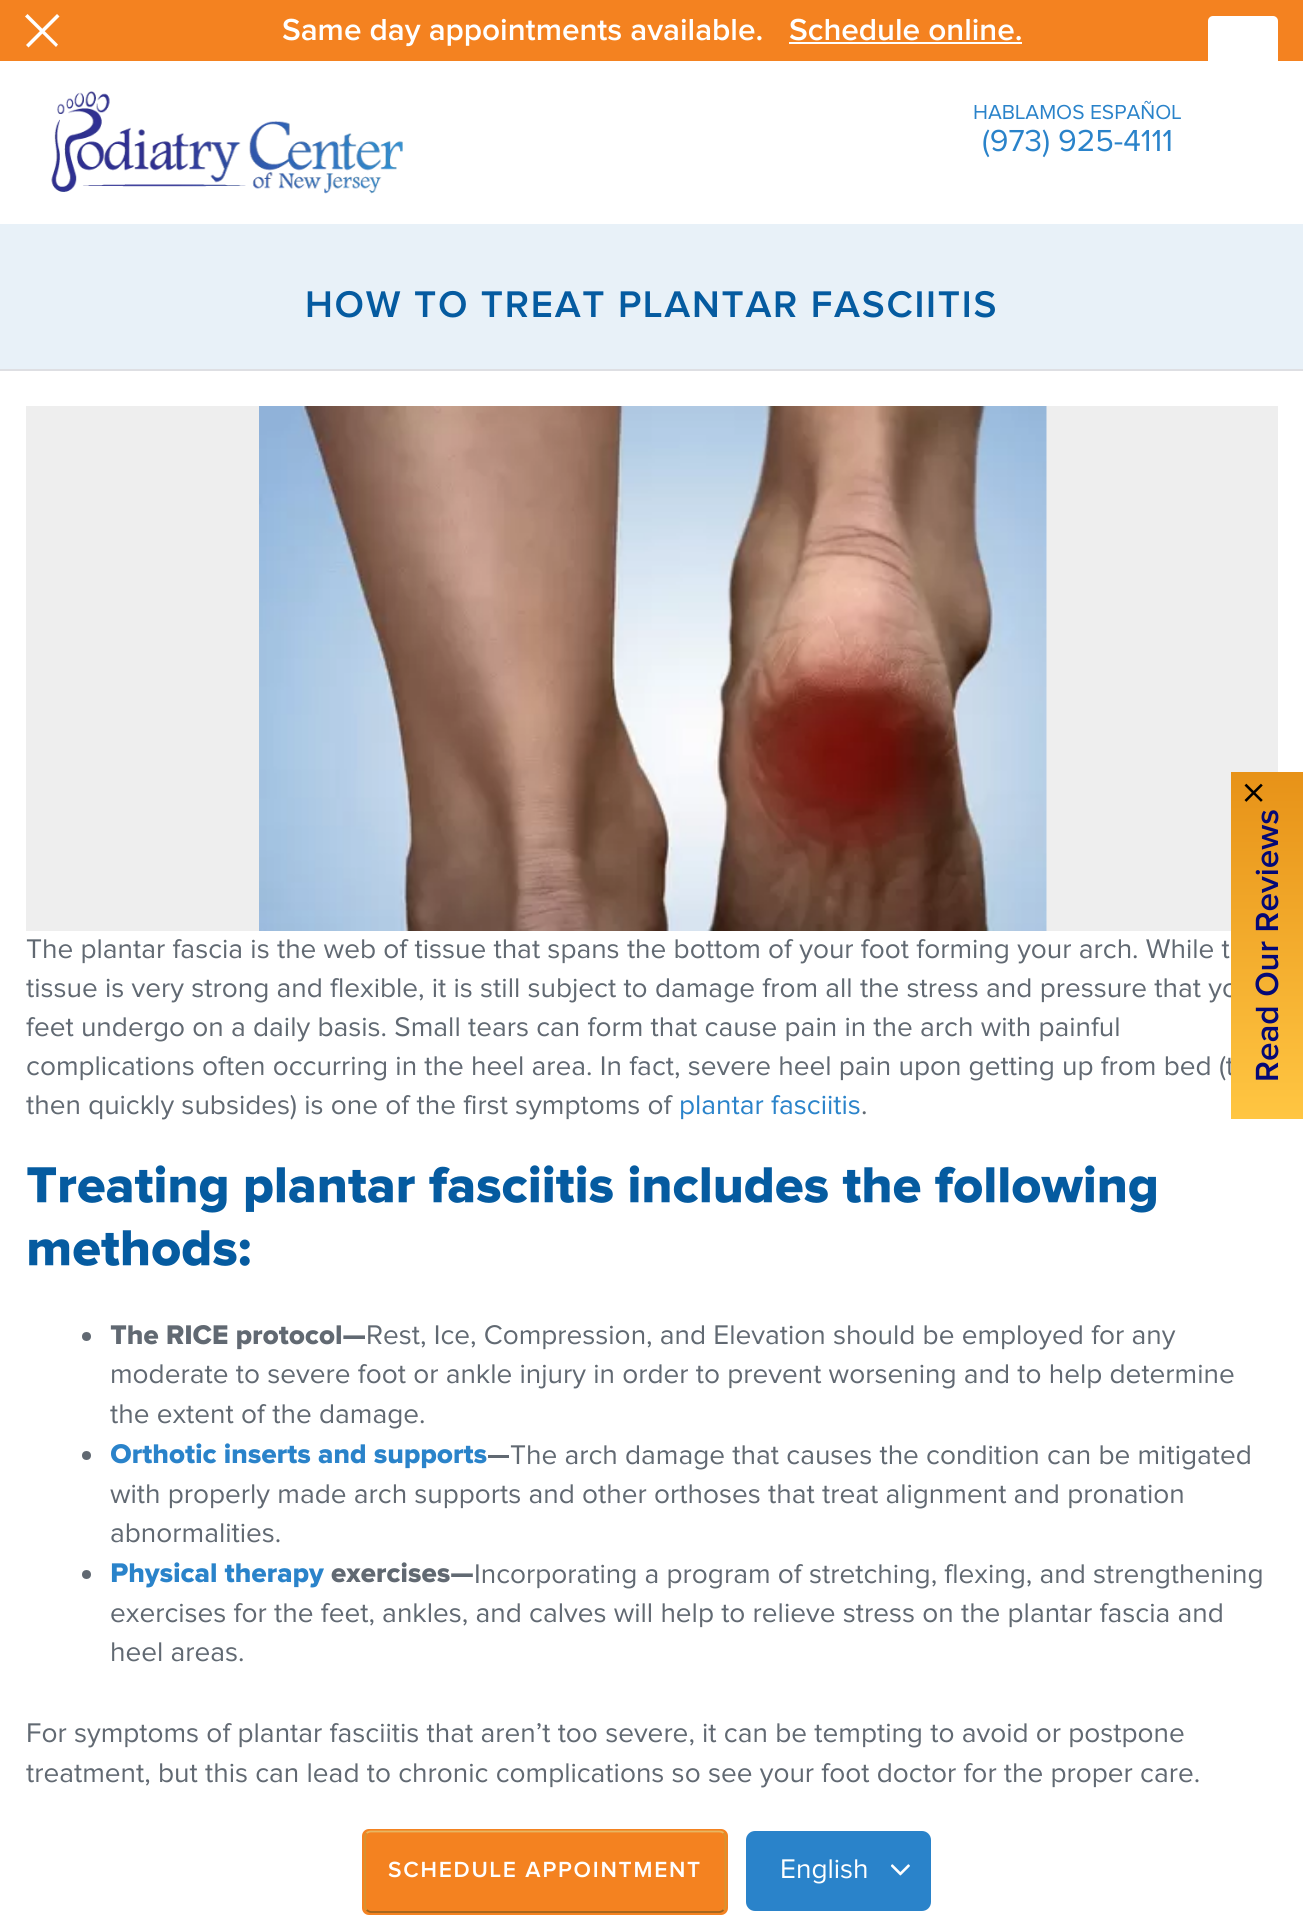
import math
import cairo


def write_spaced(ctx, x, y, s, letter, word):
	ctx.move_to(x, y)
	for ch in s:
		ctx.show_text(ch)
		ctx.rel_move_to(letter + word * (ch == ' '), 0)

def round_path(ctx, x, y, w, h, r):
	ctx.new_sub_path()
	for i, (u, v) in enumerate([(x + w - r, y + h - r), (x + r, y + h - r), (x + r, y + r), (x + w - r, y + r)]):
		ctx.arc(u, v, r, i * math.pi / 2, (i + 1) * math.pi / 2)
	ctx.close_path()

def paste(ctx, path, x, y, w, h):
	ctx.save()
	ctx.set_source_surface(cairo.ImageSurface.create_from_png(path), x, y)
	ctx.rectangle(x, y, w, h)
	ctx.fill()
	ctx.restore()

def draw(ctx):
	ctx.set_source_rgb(1, 1, 1)
	ctx.paint()
	ctx.set_source_rgb(0.957, 0.51, 0.125)
	ctx.rectangle(0, 0, 1303, 61)
	ctx.fill()
	ctx.set_source_rgb(1, 1, 1)
	ctx.new_path()
	ctx.move_to(26, 45)
	ctx.line_to(57, 14)
	ctx.line_to(59.5, 16.5)
	ctx.line_to(28.5, 47.5)
	ctx.close_path()
	ctx.fill()
	ctx.new_path()
	ctx.move_to(27.5, 14)
	ctx.line_to(58, 44.5)
	ctx.line_to(56, 47)
	ctx.line_to(25, 16.5)
	ctx.close_path()
	ctx.fill()
	ctx.select_font_face('Proxima Nova SemiBold')
	ctx.set_font_size(31.5)
	ctx.move_to(282, 40)
	ctx.show_text('Same day appointments available.')
	ctx.move_to(789, 40)
	ctx.show_text('Schedule online.')
	ctx.rectangle(789, 42, 233, 2)
	ctx.fill()
	paste(ctx, 'media/1.png', 51, 91, 352, 103)
	ctx.select_font_face('Proxima Nova')
	ctx.set_font_size(21)
	ctx.set_source_rgb(0.165, 0.514, 0.792)
	ctx.move_to(973, 119)
	ctx.show_text('HABLAMOS ESPAÑOL')
	ctx.set_font_size(31.5)
	ctx.move_to(982, 151)
	ctx.show_text('(973) 925-4111')
	ctx.set_source_rgb(0.957, 0.51, 0.125)
	round_path(ctx, 362, 1829, 366, 86, 7)
	ctx.fill()
	ctx.new_path()
	ctx.move_to(366.5, 1833)
	ctx.curve_to(368, 1832, 369.5, 1831.5, 371, 1831.5)
	ctx.line_to(719, 1831.5)
	ctx.curve_to(721, 1831.5, 722.5, 1832, 723.5, 1833)
	ctx.set_source_rgb(0.91, 0.718, 0.384)
	ctx.set_line_width(1.8)
	ctx.stroke()
	ctx.new_path()
	ctx.move_to(723.5, 1833)
	ctx.curve_to(724.5, 1834.5, 725.5, 1836, 725.5, 1837.5)
	ctx.line_to(725.5, 1906)
	ctx.curve_to(725.5, 1907.5, 724.5, 1909, 723.5, 1910)
	ctx.set_source_rgb(0.839, 0.576, 0.192)
	ctx.stroke()
	ctx.new_path()
	ctx.move_to(723.5, 1910)
	ctx.curve_to(722.5, 1911, 721, 1912, 719, 1912)
	ctx.line_to(371, 1912)
	ctx.curve_to(369.5, 1912, 368, 1911, 366.5, 1910)
	ctx.set_source_rgb(0.612, 0.388, 0.114)
	ctx.stroke()
	ctx.new_path()
	ctx.move_to(366.5, 1910)
	ctx.curve_to(365.5, 1909, 365, 1907.5, 365, 1906)
	ctx.line_to(365, 1837.5)
	ctx.curve_to(365, 1836, 365.5, 1834.5, 366.5, 1833)
	ctx.set_source_rgb(0.839, 0.576, 0.192)
	ctx.stroke()
	ctx.select_font_face('Proxima Nova SemiBold')
	ctx.set_font_size(22.75)
	ctx.set_source_rgb(1, 1, 1)
	write_spaced(ctx, 388, 1877, 'SCHEDULE APPOINTMENT', 1.75, 0)
	ctx.set_source_rgb(0.165, 0.514, 0.792)
	round_path(ctx, 746, 1831, 185, 80, 9)
	ctx.fill()
	ctx.select_font_face('Proxima Nova')
	ctx.set_font_size(28)
	ctx.set_source_rgb(1, 1, 1)
	ctx.move_to(780, 1878)
	ctx.show_text('English')
	paste(ctx, 'media/2.png', 891, 1864, 19, 12)
	round_path(ctx, 1208, 16, 70, 70, 5)
	ctx.fill()
	ctx.set_source_rgb(0.91, 0.945, 0.969)
	ctx.rectangle(0, 224, 1303, 145)
	ctx.fill()
	ctx.set_source_rgb(0.871, 0.875, 0.89)
	ctx.rectangle(0, 369, 1303, 2)
	ctx.fill()
	ctx.select_font_face('Proxima Nova SemiBold')
	ctx.set_font_size(38.5)
	ctx.set_source_rgb(0.02, 0.357, 0.627)
	write_spaced(ctx, 305, 317, 'HOW TO TREAT PLANTAR FASCIITIS', 1.75, 0)
	ctx.set_source_rgb(0.933, 0.933, 0.933)
	ctx.rectangle(26, 406, 1252, 525)
	ctx.fill()
	ctx.select_font_face('Proxima Nova')
	ctx.set_font_size(28)
	ctx.set_source_rgb(0.38, 0.412, 0.447)
	ctx.move_to(26, 997)
	ctx.show_text('tissue is very strong and flexible, it is still subject to damage from all the stress and pressure that yo')
	ctx.move_to(26, 1075)
	ctx.show_text('complications often occurring in the heel area. In fact, severe heel pain upon getting up from bed (t')
	gradient = cairo.LinearGradient(1269, 1119, 1269, 772)
	gradient.add_color_stop_rgba(0, 1, 0.776, 0.259, 1)
	gradient.add_color_stop_rgba(1, 0.906, 0.573, 0.094, 1)
	ctx.set_source(gradient)
	ctx.rectangle(1231, 772, 72, 347)
	ctx.fill()
	ctx.set_font_size(49)
	ctx.set_source_rgb(0, 0, 0)
	ctx.save()
	ctx.translate(1270, 805)
	ctx.rotate(-90 * math.pi / 180)
	ctx.move_to(0, 0)
	ctx.show_text('×')
	ctx.restore()
	ctx.select_font_face('Proxima Nova SemiBold')
	ctx.set_font_size(33.25)
	ctx.set_source_rgb(0.02, 0.039, 0.459)
	ctx.save()
	ctx.translate(1278, 1082)
	ctx.rotate(-90 * math.pi / 180)
	ctx.move_to(0, 0)
	ctx.show_text('Read Our Reviews')
	ctx.restore()
	paste(ctx, 'media/3.png', 259, 406, 788, 525)
	ctx.select_font_face('Proxima Nova')
	ctx.set_font_size(28)
	ctx.set_source_rgb(0.38, 0.412, 0.447)
	for x, y, s in [
		(26, 958, 'The plantar fascia is the web of tissue that spans the bottom of your foot forming your arch. While t'),
		(26, 1036, 'feet undergo on a daily basis. Small tears can form that cause pain in the arch with painful'),
		(26, 1114, 'then quickly subsides) is one of the first symptoms of'),
	]:
		ctx.move_to(x, y)
		ctx.show_text(s)
	ctx.set_source_rgb(0.165, 0.514, 0.792)
	ctx.move_to(679, 1114)
	ctx.show_text('plantar fasciitis')
	ctx.set_source_rgb(0.38, 0.412, 0.447)
	ctx.move_to(861, 1114)
	ctx.show_text('.')
	paste(ctx, 'media/4.png', 27, 1165, 1129, 48)
	paste(ctx, 'media/5.png', 29, 1230, 221, 36)
	ctx.arc(86.5, 1336.5, 4.5, 0, 2 * math.pi)
	ctx.fill()
	paste(ctx, 'media/6.png', 110, 1325, 255, 25)
	for x, y, s in [
		(366, 1344, 'Rest, Ice, Compression, and Elevation should be employed for any'),
		(110, 1383, 'moderate to severe foot or ankle injury in order to prevent worsening and to help determine'),
		(110, 1423, 'the extent of the damage.'),
	]:
		ctx.move_to(x, y)
		ctx.show_text(s)
	ctx.new_path()
	ctx.arc(86.5, 1455.5, 4.5, 0, 2 * math.pi)
	ctx.fill()
	paste(ctx, 'media/7.png', 111, 1443, 376, 26)
	ctx.rectangle(488, 1455, 21, 3)
	ctx.fill()
	for x, y, s in [
		(510, 1464, 'The arch damage that causes the condition can be mitigated'),
		(110, 1503, 'with properly made arch supports and other orthoses that treat alignment and pronation'),
		(110, 1542, 'abnormalities.'),
	]:
		ctx.move_to(x, y)
		ctx.show_text(s)
	ctx.new_path()
	ctx.arc(86.5, 1574.5, 4.5, 0, 2 * math.pi)
	ctx.fill()
	paste(ctx, 'media/8.png', 111, 1562, 213, 26)
	paste(ctx, 'media/9.png', 331, 1562, 142, 21)
	for x, y, s in [
		(474, 1583, 'Incorporating a program of stretching, flexing, and strengthening'),
		(110, 1622, 'exercises for the feet, ankles, and calves will help to relieve stress on the plantar fascia and'),
		(110, 1661, 'heel areas.'),
		(26, 1742, 'For symptoms of plantar fasciitis that aren’t too severe, it can be tempting to avoid or postpone'),
		(26, 1782, 'treatment, but this can lead to chronic complications so see your foot doctor for the proper care.'),
	]:
		ctx.move_to(x, y)
		ctx.show_text(s)


surface = cairo.ImageSurface(cairo.FORMAT_RGB24, 1303, 1931)
ctx = cairo.Context(surface)
options = cairo.FontOptions()
options.set_hint_metrics(cairo.HINT_METRICS_OFF)
options.set_hint_style(cairo.HINT_STYLE_NONE)
ctx.set_font_options(options)
ctx.set_miter_limit(4)
draw(ctx)
surface.write_to_png('image.png')
